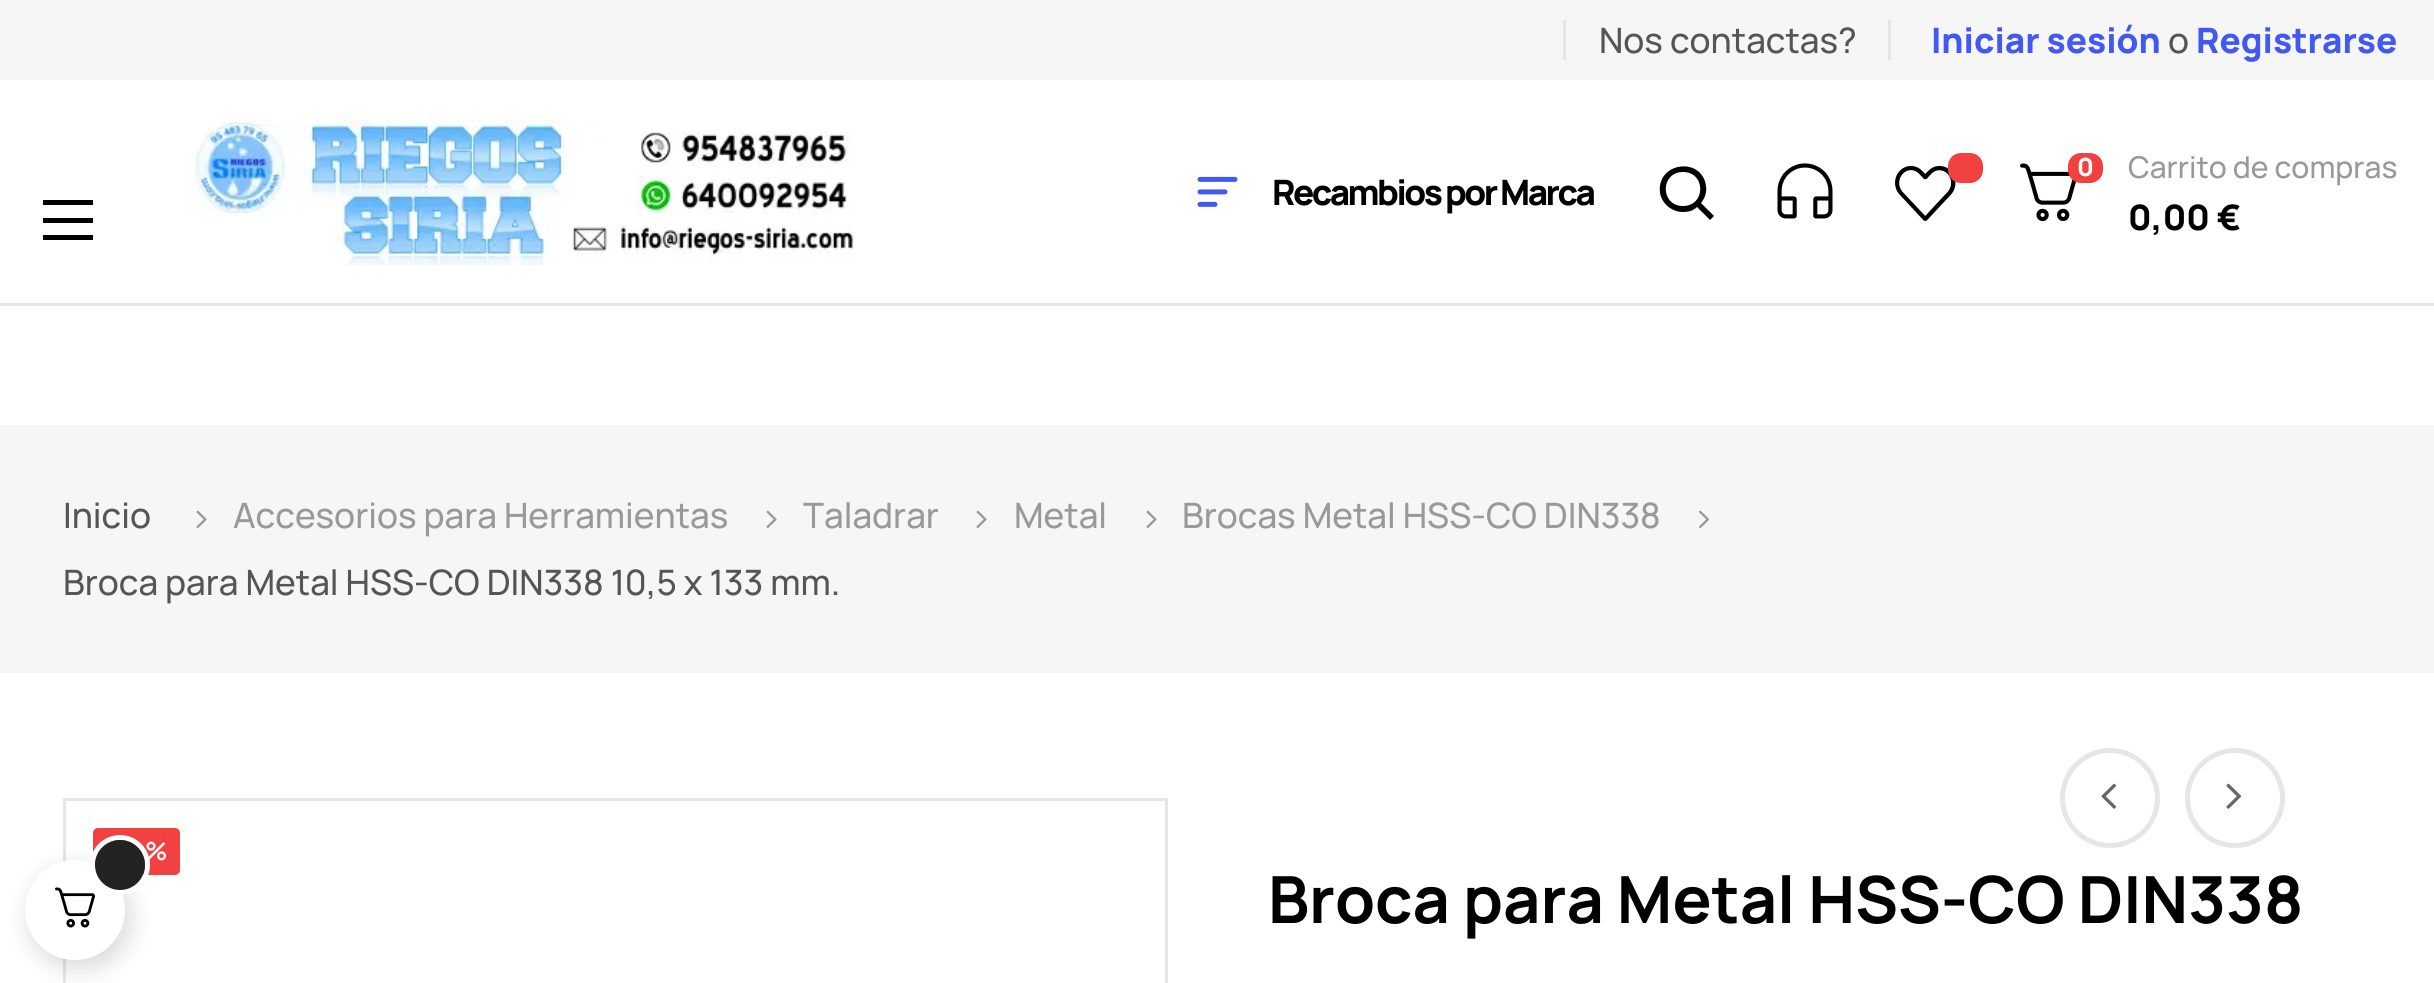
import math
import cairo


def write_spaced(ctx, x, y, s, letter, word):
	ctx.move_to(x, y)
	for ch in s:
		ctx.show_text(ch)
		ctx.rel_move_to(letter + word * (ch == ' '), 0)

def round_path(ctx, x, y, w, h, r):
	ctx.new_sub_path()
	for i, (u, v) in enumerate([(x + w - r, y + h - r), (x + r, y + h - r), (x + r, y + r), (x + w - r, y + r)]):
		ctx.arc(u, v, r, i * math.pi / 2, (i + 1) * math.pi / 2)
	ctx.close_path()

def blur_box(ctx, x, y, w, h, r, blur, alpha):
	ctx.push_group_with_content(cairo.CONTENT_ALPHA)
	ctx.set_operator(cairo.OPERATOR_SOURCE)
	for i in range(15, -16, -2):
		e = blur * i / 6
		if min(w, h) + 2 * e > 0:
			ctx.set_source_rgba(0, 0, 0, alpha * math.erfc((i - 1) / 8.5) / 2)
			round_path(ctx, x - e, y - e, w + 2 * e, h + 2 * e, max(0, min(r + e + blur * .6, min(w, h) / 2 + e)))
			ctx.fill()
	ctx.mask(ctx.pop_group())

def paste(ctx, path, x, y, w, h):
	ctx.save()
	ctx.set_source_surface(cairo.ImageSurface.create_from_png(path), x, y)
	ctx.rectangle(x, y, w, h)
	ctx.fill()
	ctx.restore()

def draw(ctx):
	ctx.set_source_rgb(1, 1, 1)
	ctx.paint()
	ctx.set_source_rgb(0.961, 0.961, 0.961)
	ctx.rectangle(0, 0, 2434, 80)
	ctx.fill()
	ctx.set_source_rgb(0.902, 0.902, 0.902)
	ctx.rectangle(1563, 20, 3, 40)
	ctx.fill()
	ctx.select_font_face('Manrope Medium')
	ctx.set_font_size(35)
	ctx.set_source_rgb(0.333, 0.333, 0.333)
	ctx.move_to(1599, 53)
	ctx.show_text('Nos contactas?')
	ctx.set_source_rgb(0.902, 0.902, 0.902)
	ctx.rectangle(1888, 20, 3, 40)
	ctx.fill()
	ctx.select_font_face('Manrope ExtraBold')
	ctx.set_source_rgb(0.255, 0.345, 0.949)
	ctx.move_to(1931, 53)
	ctx.show_text('Iniciar sesión')
	ctx.select_font_face('Manrope Medium')
	ctx.set_source_rgb(0.333, 0.333, 0.333)
	ctx.move_to(2168, 53)
	ctx.show_text('o')
	ctx.select_font_face('Manrope ExtraBold')
	ctx.set_source_rgb(0.255, 0.345, 0.949)
	ctx.move_to(2196, 53)
	ctx.show_text('Registrarse')
	ctx.set_source_rgb(0, 0, 0)
	ctx.rectangle(43, 200, 50, 5)
	ctx.rectangle(43, 235, 50, 5)
	ctx.rectangle(43, 218, 50, 5)
	ctx.fill()
	paste(ctx, 'media/1.png', 187, 120, 667, 145)
	paste(ctx, 'media/2.png', 1197, 176, 41, 31)
	write_spaced(ctx, 1272, 205, 'Recambios por Marca', -2.5, 0)
	ctx.new_path()
	ctx.move_to(1683, 212)
	ctx.curve_to(1688, 212, 1693, 211, 1697, 207)
	ctx.line_to(1710, 220)
	ctx.line_to(1714, 216)
	ctx.line_to(1701, 203)
	ctx.curve_to(1705, 198, 1707, 192, 1706, 186)
	ctx.curve_to(1702, 156, 1656, 162, 1660, 193)
	ctx.curve_to(1662, 204, 1672, 212, 1683, 212)
	ctx.close_path()
	ctx.move_to(1683, 172)
	ctx.curve_to(1706, 172, 1706, 206, 1683, 206)
	ctx.curve_to(1660, 206, 1660, 172, 1683, 172)
	ctx.close_path()
	ctx.fill()
	paste(ctx, 'media/3.png', 1777, 163, 56, 56)
	paste(ctx, 'media/4.png', 1895, 165, 61, 56)
	ctx.set_source_rgb(0.945, 0.255, 0.255)
	round_path(ctx, 1948, 153, 35, 30, 13)
	ctx.fill()
	paste(ctx, 'media/5.png', 2020, 163, 56, 59)
	round_path(ctx, 2068, 153, 35, 30, 13)
	ctx.fill()
	ctx.set_font_size(25)
	ctx.set_source_rgb(1, 1, 1)
	ctx.move_to(2077, 176)
	ctx.show_text('0')
	ctx.select_font_face('Manrope Medium')
	ctx.set_font_size(30)
	ctx.set_source_rgb(0.6, 0.6, 0.6)
	ctx.move_to(2128, 178)
	ctx.show_text('Carrito de compras')
	ctx.select_font_face('Manrope ExtraBold')
	ctx.set_font_size(35)
	ctx.set_source_rgb(0, 0, 0)
	ctx.move_to(2128, 230)
	ctx.show_text('0,00 €')
	ctx.set_source_rgb(0.902, 0.902, 0.902)
	ctx.rectangle(0, 303, 2434, 3)
	ctx.fill()
	ctx.set_source_rgb(0.961, 0.961, 0.961)
	ctx.rectangle(0, 425, 2434, 248)
	ctx.fill()
	ctx.select_font_face('Manrope Medium')
	ctx.set_source_rgb(0.333, 0.333, 0.333)
	ctx.move_to(63, 528)
	ctx.show_text('Inicio')
	paste(ctx, 'media/6.png', 196, 510, 11, 18)
	ctx.set_source_rgb(0.6, 0.6, 0.6)
	ctx.move_to(233, 528)
	ctx.show_text('Accesorios para Herramientas')
	paste(ctx, 'media/6.png', 766, 510, 11, 18)
	ctx.move_to(803, 528)
	ctx.show_text('Taladrar')
	paste(ctx, 'media/6.png', 976, 510, 11, 18)
	ctx.move_to(1014, 528)
	ctx.show_text('Metal')
	paste(ctx, 'media/6.png', 1146, 510, 11, 18)
	ctx.move_to(1182, 528)
	ctx.show_text('Brocas Metal HSS-CO DIN338')
	paste(ctx, 'media/7.png', 1699, 510, 11, 19)
	ctx.set_source_rgb(0.333, 0.333, 0.333)
	ctx.move_to(63, 595)
	ctx.show_text('Broca para Metal HSS-CO DIN338 10,5 x 133 mm.')
	ctx.new_path()
	ctx.arc(2110, 798, 47.5, 0, 2 * math.pi)
	ctx.set_source_rgb(0.902, 0.902, 0.902)
	ctx.set_line_width(5)
	ctx.stroke()
	paste(ctx, 'media/8.png', 2101, 783, 16, 26)
	ctx.arc(2235, 798, 47.5, 0, 2 * math.pi)
	ctx.stroke()
	paste(ctx, 'media/9.png', 2226, 783, 16, 26)
	ctx.rectangle(64.5, 799.5, 1102, 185)
	ctx.set_line_width(3)
	ctx.stroke()
	ctx.set_source_rgb(0.945, 0.255, 0.255)
	round_path(ctx, 91.5, 826.5, 90, 50, 6.5)
	ctx.fill_preserve()
	ctx.set_source_rgb(1, 1, 1)
	ctx.stroke()
	ctx.select_font_face('Manrope SemiBold')
	ctx.set_font_size(25)
	ctx.move_to(145, 860)
	ctx.show_text('%')
	ctx.select_font_face('Manrope', cairo.FONT_SLANT_NORMAL, cairo.FONT_WEIGHT_BOLD)
	ctx.set_font_size(65)
	ctx.set_source_rgb(0, 0, 0)
	ctx.move_to(1268, 923)
	ctx.show_text('Broca para Metal HSS-CO DIN338')
	ctx.set_source_rgb(0, 0, 0)
	blur_box(ctx, 30, 868, 100, 100, 50, 12.5, 0.15)
	ctx.set_source_rgb(1, 1, 1)
	ctx.arc(75, 910, 50, 0, 2 * math.pi)
	ctx.fill()
	paste(ctx, 'media/10.png', 55, 887, 40, 41)
	ctx.arc(120, 865, 27.5, 0, 2 * math.pi)
	ctx.set_line_width(5)
	ctx.stroke()
	ctx.set_source_rgb(0.133, 0.133, 0.133)
	ctx.arc(120, 865, 25, 0, 2 * math.pi)
	ctx.fill()


surface = cairo.ImageSurface(cairo.FORMAT_RGB24, 2434, 983)
ctx = cairo.Context(surface)
options = cairo.FontOptions()
options.set_hint_metrics(cairo.HINT_METRICS_OFF)
options.set_hint_style(cairo.HINT_STYLE_NONE)
ctx.set_font_options(options)
ctx.set_miter_limit(4)
draw(ctx)
surface.write_to_png('image.png')
